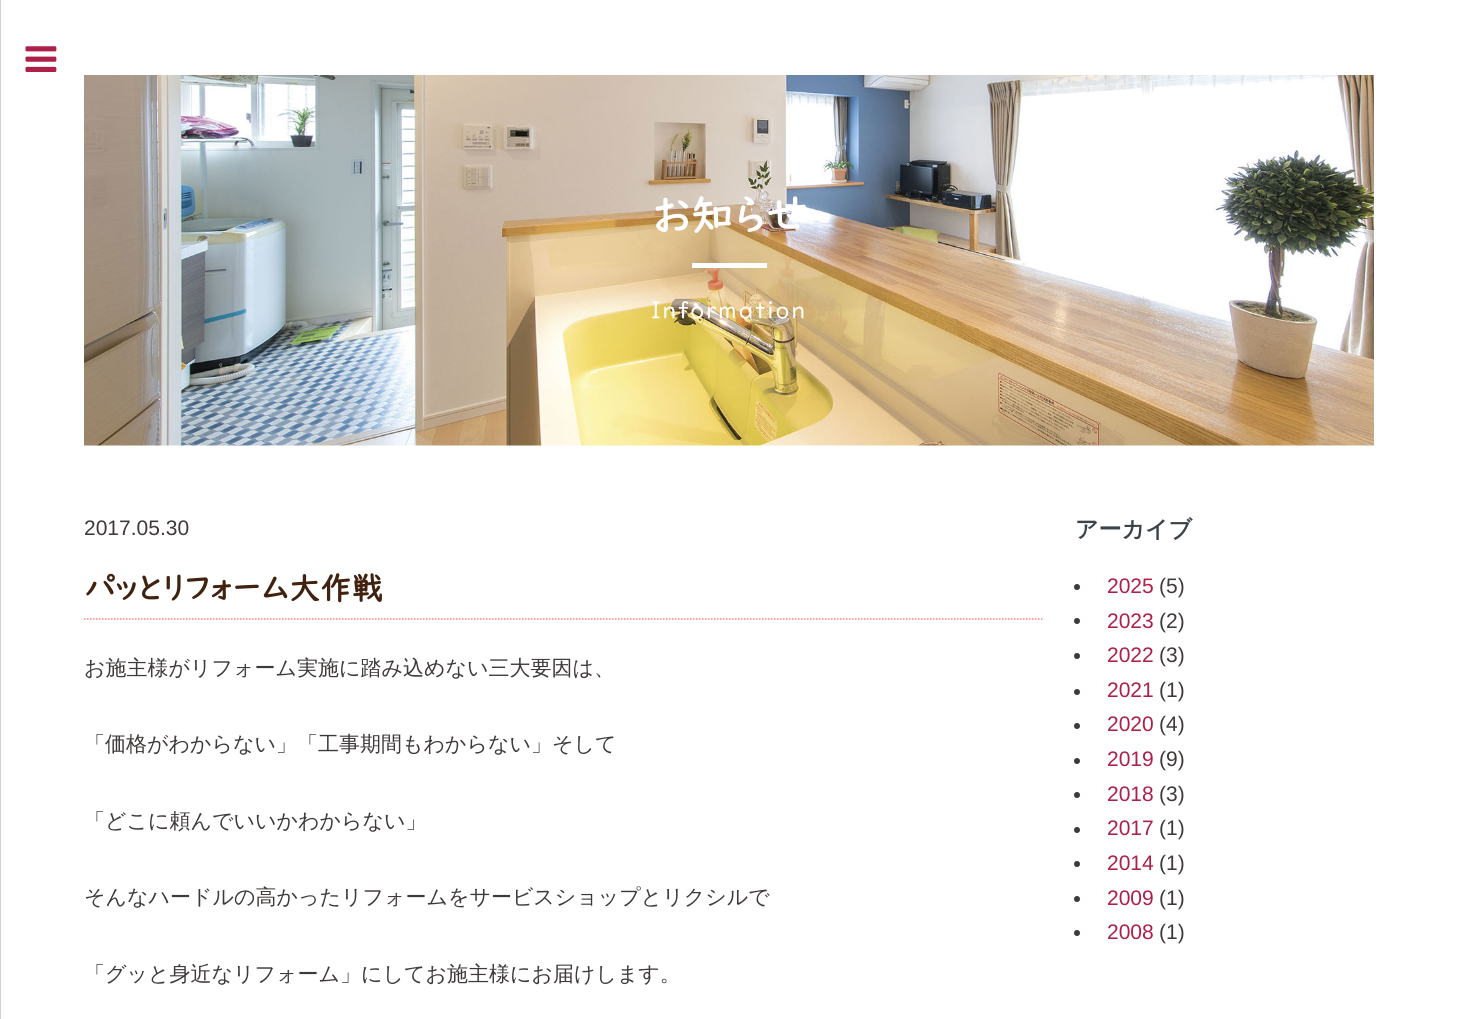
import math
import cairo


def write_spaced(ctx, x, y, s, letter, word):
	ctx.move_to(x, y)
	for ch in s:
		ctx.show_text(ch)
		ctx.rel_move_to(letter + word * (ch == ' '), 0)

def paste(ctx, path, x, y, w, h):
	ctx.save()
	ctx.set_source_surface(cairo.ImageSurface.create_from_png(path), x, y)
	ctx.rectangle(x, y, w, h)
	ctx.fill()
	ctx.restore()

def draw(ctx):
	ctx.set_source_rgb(1, 1, 1)
	ctx.paint()
	ctx.set_source_rgb(0.816, 0.82, 0.82)
	ctx.rectangle(0, 0, 1, 1019)
	ctx.fill()
	paste(ctx, 'media/1.png', 25, 46, 32, 26)
	paste(ctx, 'media/2.png', 84, 75, 1290, 371)
	ctx.select_font_face('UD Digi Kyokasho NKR', cairo.FONT_SLANT_NORMAL, cairo.FONT_WEIGHT_BOLD)
	ctx.set_font_size(42)
	ctx.set_source_rgb(1, 1, 1)
	ctx.move_to(652, 231)
	ctx.show_text('お知らせ')
	ctx.rectangle(692, 263, 75, 5)
	ctx.fill()
	ctx.select_font_face('UD Digi Kyokasho NKR')
	ctx.set_font_size(24)
	write_spaced(ctx, 651, 319, 'Information', 1.75, 0)
	ctx.select_font_face('Liberation Sans')
	ctx.set_font_size(21)
	ctx.set_source_rgb(0.243, 0.227, 0.224)
	ctx.move_to(84, 535)
	ctx.show_text('2017.05.30')
	ctx.new_path()
	ctx.move_to(84, 619)
	ctx.line_to(1044, 619)
	ctx.set_source_rgb(1, 0.494, 0.498)
	ctx.set_line_width(1.5)
	ctx.set_dash([1.5, 1.5])
	ctx.stroke()
	ctx.select_font_face('UD Digi Kyokasho NKR', cairo.FONT_SLANT_NORMAL, cairo.FONT_WEIGHT_BOLD)
	ctx.set_font_size(31.5)
	ctx.set_source_rgb(0.251, 0.133, 0.059)
	ctx.move_to(84, 600)
	ctx.show_text('パッとリフォーム大作戦')
	ctx.select_font_face('WenQuanYi Zen Hei Medium')
	ctx.set_font_size(21)
	ctx.set_source_rgb(0.243, 0.227, 0.224)
	for x, y, s in [
		(84, 675, 'お施主様がリフォーム実施に踏み込めない三大要因は、'),
		(84, 751, '「価格がわからない」「工事期間もわからない」そして'),
		(84, 828, '「どこに頼んでいいかわからない」'),
		(84, 904, 'そんなハードルの高かったリフォームをサービスショップとリクシルで'),
		(84, 981, '「グッと身近なリフォーム」にしてお施主様にお届けします。'),
	]:
		ctx.move_to(x, y)
		ctx.show_text(s)
	ctx.select_font_face('WenQuanYi Zen Hei', cairo.FONT_SLANT_NORMAL, cairo.FONT_WEIGHT_BOLD)
	ctx.set_font_size(23)
	ctx.set_source_rgb(0.239, 0.267, 0.286)
	ctx.move_to(1075, 537)
	ctx.show_text('アーカイブ')
	ctx.set_source_rgb(0.243, 0.227, 0.224)
	ctx.new_path()
	ctx.arc(1077, 587, 3, 0, 2 * math.pi)
	ctx.fill()
	ctx.select_font_face('Liberation Sans')
	ctx.set_font_size(21)
	ctx.set_source_rgb(0.675, 0.125, 0.286)
	ctx.move_to(1107, 593)
	ctx.show_text('2025')
	ctx.set_source_rgb(0.243, 0.227, 0.224)
	ctx.move_to(1159, 593)
	ctx.show_text('(5)')
	ctx.new_path()
	ctx.arc(1077, 621, 3, 0, 2 * math.pi)
	ctx.fill()
	ctx.set_source_rgb(0.675, 0.125, 0.286)
	ctx.move_to(1107, 628)
	ctx.show_text('2023')
	ctx.set_source_rgb(0.243, 0.227, 0.224)
	ctx.move_to(1159, 628)
	ctx.show_text('(2)')
	ctx.new_path()
	ctx.arc(1077, 656, 3, 0, 2 * math.pi)
	ctx.fill()
	ctx.set_source_rgb(0.675, 0.125, 0.286)
	ctx.move_to(1107, 662)
	ctx.show_text('2022')
	ctx.set_source_rgb(0.243, 0.227, 0.224)
	ctx.move_to(1159, 662)
	ctx.show_text('(3)')
	ctx.new_path()
	ctx.arc(1077, 692, 3, 0, 2 * math.pi)
	ctx.fill()
	ctx.set_source_rgb(0.675, 0.125, 0.286)
	ctx.move_to(1107, 697)
	ctx.show_text('2021')
	ctx.set_source_rgb(0.243, 0.227, 0.224)
	ctx.move_to(1159, 697)
	ctx.show_text('(1)')
	ctx.new_path()
	ctx.arc(1077, 726, 3, 0, 2 * math.pi)
	ctx.fill()
	ctx.set_source_rgb(0.675, 0.125, 0.286)
	ctx.move_to(1107, 731)
	ctx.show_text('2020')
	ctx.set_source_rgb(0.243, 0.227, 0.224)
	ctx.move_to(1159, 731)
	ctx.show_text('(4)')
	ctx.new_path()
	ctx.arc(1077, 761, 3, 0, 2 * math.pi)
	ctx.fill()
	ctx.set_source_rgb(0.675, 0.125, 0.286)
	ctx.move_to(1107, 766)
	ctx.show_text('2019')
	ctx.set_source_rgb(0.243, 0.227, 0.224)
	ctx.move_to(1159, 766)
	ctx.show_text('(9)')
	ctx.new_path()
	ctx.arc(1077, 795, 3, 0, 2 * math.pi)
	ctx.fill()
	ctx.set_source_rgb(0.675, 0.125, 0.286)
	ctx.move_to(1107, 801)
	ctx.show_text('2018')
	ctx.set_source_rgb(0.243, 0.227, 0.224)
	ctx.move_to(1159, 801)
	ctx.show_text('(3)')
	ctx.new_path()
	ctx.arc(1077, 830, 3, 0, 2 * math.pi)
	ctx.fill()
	ctx.set_source_rgb(0.675, 0.125, 0.286)
	ctx.move_to(1107, 835)
	ctx.show_text('2017')
	ctx.set_source_rgb(0.243, 0.227, 0.224)
	ctx.move_to(1159, 835)
	ctx.show_text('(1)')
	ctx.new_path()
	ctx.arc(1077, 864, 3, 0, 2 * math.pi)
	ctx.fill()
	ctx.set_source_rgb(0.675, 0.125, 0.286)
	ctx.move_to(1107, 870)
	ctx.show_text('2014')
	ctx.set_source_rgb(0.243, 0.227, 0.224)
	ctx.move_to(1159, 870)
	ctx.show_text('(1)')
	ctx.new_path()
	ctx.arc(1077, 899, 3, 0, 2 * math.pi)
	ctx.fill()
	ctx.set_source_rgb(0.675, 0.125, 0.286)
	ctx.move_to(1107, 905)
	ctx.show_text('2009')
	ctx.set_source_rgb(0.243, 0.227, 0.224)
	ctx.move_to(1159, 905)
	ctx.show_text('(1)')
	ctx.new_path()
	ctx.arc(1077, 933, 3, 0, 2 * math.pi)
	ctx.fill()
	ctx.set_source_rgb(0.675, 0.125, 0.286)
	ctx.move_to(1107, 939)
	ctx.show_text('2008')
	ctx.set_source_rgb(0.243, 0.227, 0.224)
	ctx.move_to(1159, 939)
	ctx.show_text('(1)')


surface = cairo.ImageSurface(cairo.FORMAT_RGB24, 1458, 1019)
ctx = cairo.Context(surface)
options = cairo.FontOptions()
options.set_hint_metrics(cairo.HINT_METRICS_OFF)
options.set_hint_style(cairo.HINT_STYLE_NONE)
ctx.set_font_options(options)
ctx.set_miter_limit(4)
draw(ctx)
surface.write_to_png('image.png')
